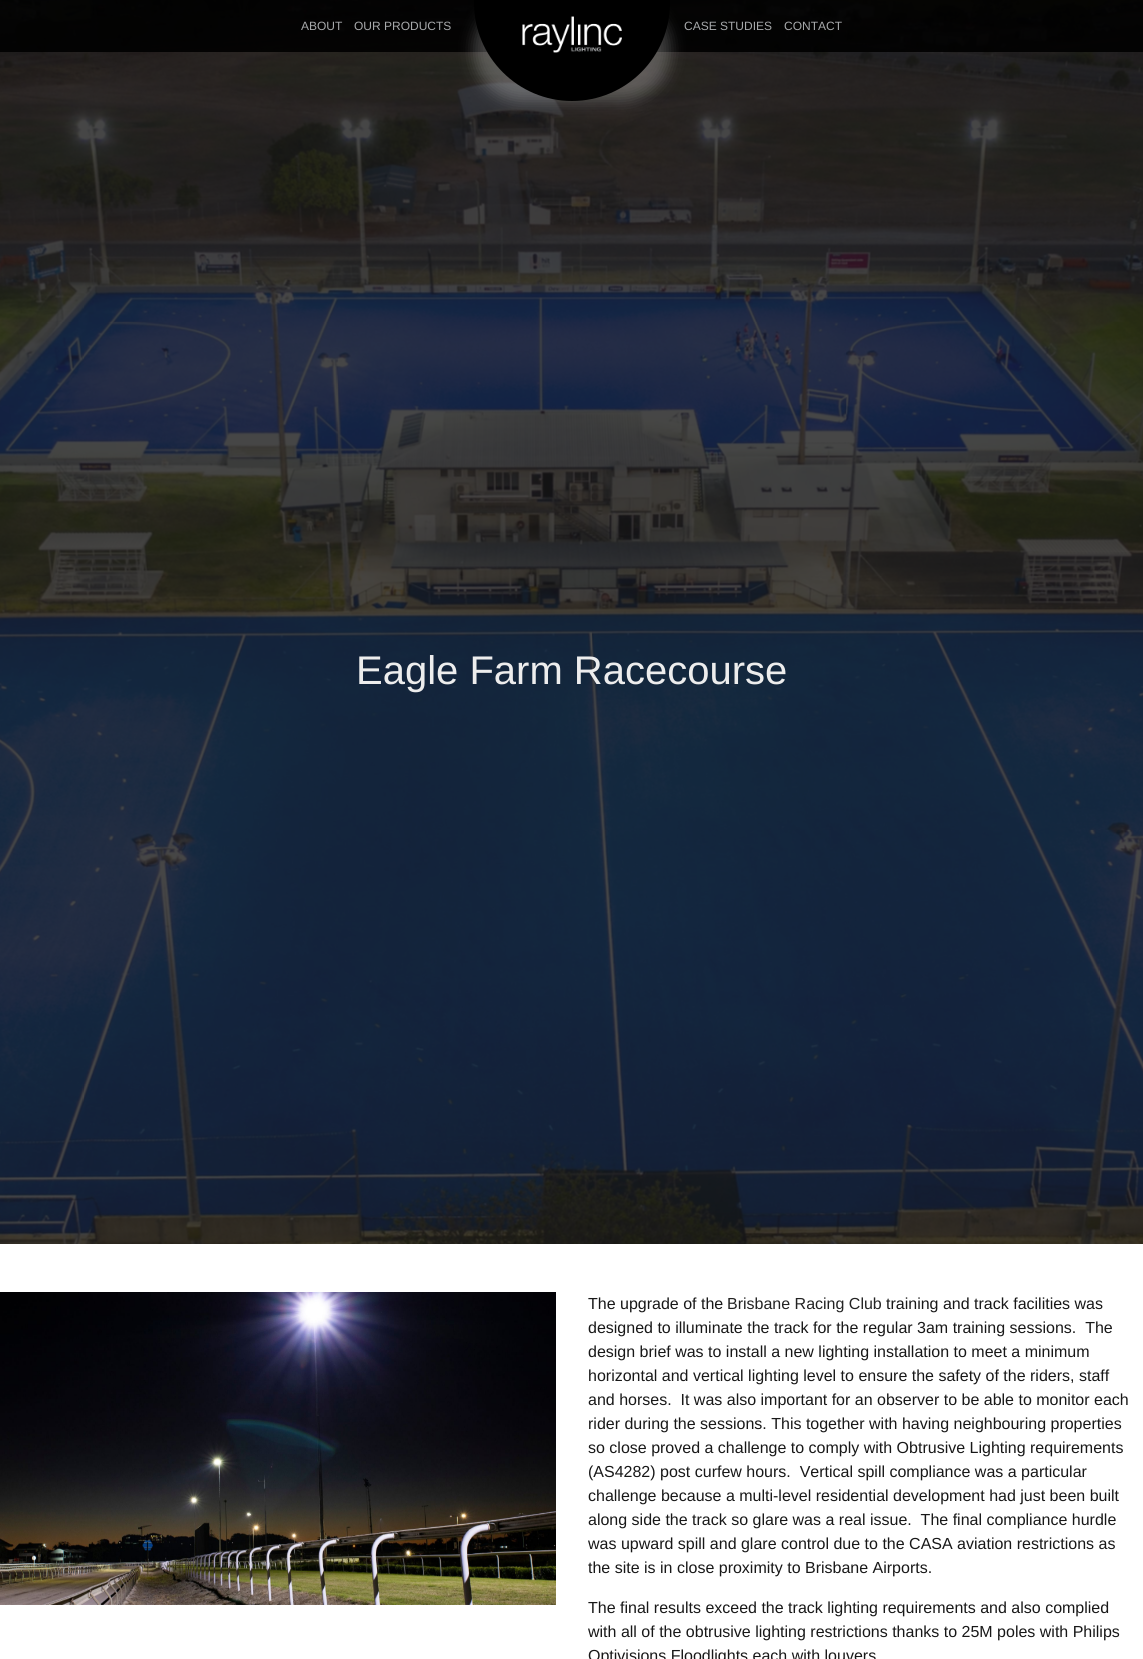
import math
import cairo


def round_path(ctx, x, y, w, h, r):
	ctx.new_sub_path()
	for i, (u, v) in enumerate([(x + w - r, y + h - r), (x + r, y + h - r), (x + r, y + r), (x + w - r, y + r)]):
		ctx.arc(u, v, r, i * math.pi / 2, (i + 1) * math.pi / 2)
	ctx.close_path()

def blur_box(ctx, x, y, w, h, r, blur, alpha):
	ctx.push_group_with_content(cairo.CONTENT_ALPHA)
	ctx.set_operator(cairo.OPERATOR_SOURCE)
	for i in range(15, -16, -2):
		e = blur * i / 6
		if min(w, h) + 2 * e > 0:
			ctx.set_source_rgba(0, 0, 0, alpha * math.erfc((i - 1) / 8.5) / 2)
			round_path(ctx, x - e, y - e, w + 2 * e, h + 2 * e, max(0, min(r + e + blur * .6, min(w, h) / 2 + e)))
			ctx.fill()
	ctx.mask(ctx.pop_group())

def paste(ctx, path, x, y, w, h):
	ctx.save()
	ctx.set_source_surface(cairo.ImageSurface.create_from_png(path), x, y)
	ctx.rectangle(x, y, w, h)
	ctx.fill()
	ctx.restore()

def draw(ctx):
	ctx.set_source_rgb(1, 1, 1)
	ctx.paint()
	paste(ctx, 'media/2.png', 0, 0, 1143, 1244)
	ctx.set_source_rgba(0, 0, 0, 0.9)
	ctx.rectangle(0, 0, 1143, 52)
	ctx.fill()
	ctx.select_font_face('Liberation Sans')
	ctx.set_font_size(12)
	ctx.set_source_rgb(0.655, 0.663, 0.671)
	ctx.move_to(301, 30)
	ctx.show_text('ABOUT')
	ctx.move_to(354, 30)
	ctx.show_text('OUR PRODUCTS')
	ctx.set_source_rgb(1, 1, 1)
	blur_box(ctx, 474, 0, 196, 101, 98, 7.5, 0.25)
	ctx.set_source_rgb(0, 0, 0)
	ctx.new_path()
	ctx.move_to(474, 0)
	ctx.line_to(670, 0)
	ctx.line_to(670, 3)
	ctx.curve_to(670, 57, 626, 101, 572, 101)
	ctx.curve_to(518, 101, 474, 57, 474, 3)
	ctx.close_path()
	ctx.fill()
	paste(ctx, 'media/1.png', 522, 16, 100, 37)
	ctx.set_source_rgb(0.655, 0.663, 0.671)
	ctx.move_to(684, 30)
	ctx.show_text('CASE STUDIES')
	ctx.move_to(784, 30)
	ctx.show_text('CONTACT')
	ctx.set_font_size(40)
	ctx.set_source_rgb(0.929, 0.929, 0.929)
	ctx.move_to(356, 684)
	ctx.show_text('Eagle Farm Racecourse')
	paste(ctx, 'media/3.png', 0, 1292, 556, 313)
	ctx.set_font_size(16)
	ctx.set_source_rgb(0.094, 0.094, 0.094)
	ctx.move_to(588, 1309)
	ctx.show_text('The upgrade of the')
	ctx.set_source_rgb(0.137, 0.137, 0.137)
	ctx.move_to(727, 1309)
	ctx.show_text('Brisbane Racing Club')
	ctx.set_source_rgb(0.094, 0.094, 0.094)
	for x, y, s in [
		(886, 1309, 'training and track facilities was'),
		(588, 1333, 'designed to illuminate the track for the regular 3am training sessions.  The'),
		(588, 1357, 'design brief was to install a new lighting installation to meet a minimum'),
		(588, 1381, 'horizontal and vertical lighting level to ensure the safety of the riders, staff'),
		(588, 1405, 'and horses.  It was also important for an observer to be able to monitor each'),
		(588, 1429, 'rider during the sessions. This together with having neighbouring properties'),
		(588, 1453, 'so close proved a challenge to comply with Obtrusive Lighting requirements'),
		(588, 1477, '(AS4282) post curfew hours.  Vertical spill compliance was a particular'),
		(588, 1501, 'challenge because a multi-level residential development had just been built'),
		(588, 1525, 'along side the track so glare was a real issue.  The final compliance hurdle'),
		(588, 1549, 'was upward spill and glare control due to the CASA aviation restrictions as'),
		(588, 1573, 'the site is in close proximity to Brisbane Airports.'),
		(588, 1613, 'The final results exceed the track lighting requirements and also complied'),
		(588, 1637, 'with all of the obtrusive lighting restrictions thanks to 25M poles with Philips'),
		(588, 1661, 'Optivisions Floodlights each with louvers'),
	]:
		ctx.move_to(x, y)
		ctx.show_text(s)


surface = cairo.ImageSurface(cairo.FORMAT_RGB24, 1143, 1659)
ctx = cairo.Context(surface)
options = cairo.FontOptions()
options.set_hint_metrics(cairo.HINT_METRICS_OFF)
options.set_hint_style(cairo.HINT_STYLE_NONE)
ctx.set_font_options(options)
ctx.set_miter_limit(4)
draw(ctx)
surface.write_to_png('image.png')
